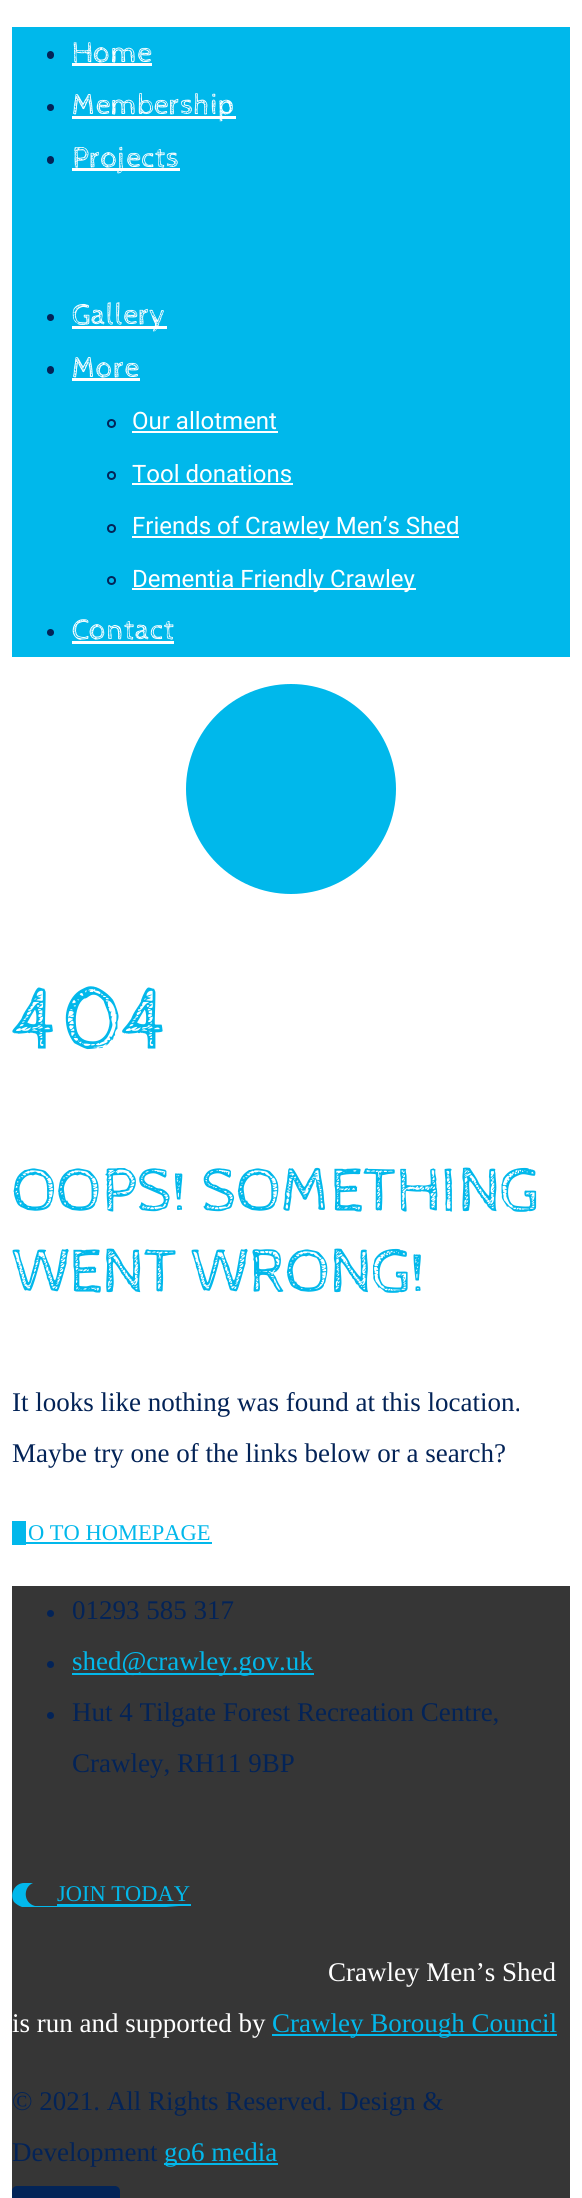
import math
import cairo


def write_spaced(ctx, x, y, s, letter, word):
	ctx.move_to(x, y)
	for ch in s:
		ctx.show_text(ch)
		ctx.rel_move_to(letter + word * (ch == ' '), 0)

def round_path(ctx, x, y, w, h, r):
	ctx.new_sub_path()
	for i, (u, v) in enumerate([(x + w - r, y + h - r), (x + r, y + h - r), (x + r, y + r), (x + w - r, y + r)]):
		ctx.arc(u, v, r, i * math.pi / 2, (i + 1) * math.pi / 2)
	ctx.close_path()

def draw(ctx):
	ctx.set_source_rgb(1, 1, 1)
	ctx.paint()
	ctx.set_source_rgb(0, 0.722, 0.918)
	ctx.rectangle(12, 27, 558, 630)
	ctx.fill()
	ctx.set_source_rgb(0.012, 0.137, 0.341)
	round_path(ctx, 47, 51, 7, 8, 3.5)
	ctx.fill()
	ctx.select_font_face('Cabin Sketch')
	ctx.set_font_size(30)
	ctx.set_source_rgb(1, 1, 1)
	ctx.move_to(72, 62)
	ctx.show_text('Home')
	ctx.rectangle(72, 63, 80, 3)
	ctx.fill()
	ctx.set_source_rgb(0.012, 0.137, 0.341)
	ctx.arc(50.5, 107.5, 3.5, 0, 2 * math.pi)
	ctx.fill()
	ctx.set_source_rgb(1, 1, 1)
	ctx.rectangle(72, 116, 164, 3)
	ctx.fill()
	ctx.move_to(72, 114)
	ctx.show_text('Membership')
	ctx.set_source_rgb(0.012, 0.137, 0.341)
	round_path(ctx, 47, 156, 7, 8, 3.5)
	ctx.fill()
	ctx.set_source_rgb(1, 1, 1)
	ctx.rectangle(72, 168, 108, 3)
	ctx.fill()
	ctx.move_to(72, 167)
	ctx.show_text('Projects')
	ctx.set_source_rgb(0.012, 0.137, 0.341)
	ctx.new_path()
	ctx.arc(50.5, 317.5, 3.5, 0, 2 * math.pi)
	ctx.fill()
	ctx.set_source_rgb(1, 1, 1)
	ctx.rectangle(72, 326, 95, 3)
	ctx.fill()
	ctx.move_to(72, 324)
	ctx.show_text('Gallery')
	ctx.set_source_rgb(0.012, 0.137, 0.341)
	round_path(ctx, 47, 366, 7, 8, 3.5)
	ctx.fill()
	ctx.set_source_rgb(1, 1, 1)
	ctx.move_to(72, 377)
	ctx.show_text('More')
	ctx.rectangle(72, 378, 68, 3)
	ctx.fill()
	ctx.arc(111.5, 423.5, 3.5, 0, 2 * math.pi)
	ctx.set_source_rgb(0.012, 0.137, 0.341)
	ctx.stroke()
	ctx.select_font_face('Roboto')
	ctx.set_font_size(24)
	ctx.set_source_rgb(1, 1, 1)
	ctx.move_to(132, 429)
	ctx.show_text('Our allotment')
	ctx.rectangle(132, 431, 146, 2)
	ctx.fill()
	ctx.arc(111.5, 475.5, 3.5, 0, 2 * math.pi)
	ctx.set_source_rgb(0.012, 0.137, 0.341)
	ctx.stroke()
	ctx.set_source_rgb(1, 1, 1)
	ctx.move_to(132, 482)
	ctx.show_text('Tool donations')
	ctx.rectangle(132, 483, 161, 2)
	ctx.fill()
	ctx.arc(111.5, 528.5, 3.5, 0, 2 * math.pi)
	ctx.set_source_rgb(0.012, 0.137, 0.341)
	ctx.stroke()
	ctx.set_source_rgb(1, 1, 1)
	ctx.rectangle(132, 536, 327, 2)
	ctx.fill()
	ctx.move_to(132, 534)
	ctx.show_text('Friends of Crawley Men’s Shed')
	ctx.new_path()
	ctx.arc(111.5, 580.5, 3.5, 0, 2 * math.pi)
	ctx.set_source_rgb(0.012, 0.137, 0.341)
	ctx.stroke()
	ctx.set_source_rgb(1, 1, 1)
	ctx.rectangle(132, 588, 284, 2)
	ctx.fill()
	ctx.move_to(132, 587)
	ctx.show_text('Dementia Friendly Crawley')
	ctx.set_source_rgb(0.012, 0.137, 0.341)
	ctx.new_path()
	ctx.arc(50.5, 632.5, 3.5, 0, 2 * math.pi)
	ctx.fill()
	ctx.select_font_face('Cabin Sketch')
	ctx.set_font_size(30)
	ctx.set_source_rgb(1, 1, 1)
	ctx.move_to(72, 639)
	ctx.show_text('Contact')
	ctx.rectangle(72, 641, 102, 3)
	ctx.fill()
	ctx.set_source_rgb(0, 0.722, 0.918)
	ctx.arc(291, 789, 105, 0, 2 * math.pi)
	ctx.fill()
	ctx.set_font_size(90)
	ctx.set_source_rgb(0.008, 0.722, 0.918)
	write_spaced(ctx, 12, 1048, '404', -2, 0)
	ctx.set_font_size(63)
	write_spaced(ctx, 12, 1210, 'OOPS! SOMETHING', -0.25, 0)
	write_spaced(ctx, 12, 1291, 'WENT WRONG!', -0.25, 0)
	ctx.select_font_face('Liberation Serif')
	ctx.set_font_size(27)
	ctx.set_source_rgb(0.012, 0.137, 0.341)
	ctx.move_to(12, 1411)
	ctx.show_text('It looks like nothing was found at this location.')
	ctx.move_to(12, 1462)
	ctx.show_text('Maybe try one of the links below or a search?')
	ctx.set_font_size(22.5)
	ctx.set_source_rgb(0.008, 0.722, 0.918)
	ctx.move_to(28, 1540)
	ctx.show_text('O TO HOMEPAGE')
	ctx.rectangle(12, 1521, 14, 24)
	ctx.rectangle(26, 1542, 186, 2)
	ctx.fill()
	ctx.set_source_rgb(0.212, 0.212, 0.212)
	ctx.rectangle(12, 1586, 558, 612)
	ctx.fill()
	ctx.set_source_rgb(0.012, 0.137, 0.341)
	ctx.arc(50.5, 1613.5, 3.5, 0, 2 * math.pi)
	ctx.fill()
	ctx.set_font_size(27)
	ctx.move_to(72, 1619)
	ctx.show_text('01293 585 317')
	ctx.new_path()
	ctx.arc(50.5, 1664.5, 3.5, 0, 2 * math.pi)
	ctx.fill()
	ctx.set_source_rgb(0.008, 0.722, 0.918)
	ctx.rectangle(72, 1673, 242, 2)
	ctx.fill()
	ctx.move_to(72, 1670)
	ctx.show_text('shed@crawley.gov.uk')
	ctx.set_source_rgb(0.012, 0.137, 0.341)
	ctx.new_path()
	ctx.arc(50.5, 1715.5, 3.5, 0, 2 * math.pi)
	ctx.fill()
	ctx.move_to(72, 1721)
	ctx.show_text('Hut 4 Tilgate Forest Recreation Centre,')
	ctx.move_to(72, 1772)
	ctx.show_text('Crawley, RH11 9BP')
	ctx.set_source_rgb(0.008, 0.722, 0.918)
	ctx.new_path()
	ctx.move_to(24, 1883)
	ctx.curve_to(15, 1883, 9, 1894, 14, 1902)
	ctx.curve_to(16, 1904, 19, 1906, 22, 1907)
	ctx.line_to(179, 1907)
	ctx.line_to(166, 1906)
	ctx.line_to(35, 1906)
	ctx.curve_to(23, 1903, 23, 1887, 33, 1883)
	ctx.close_path()
	ctx.fill()
	ctx.set_font_size(22.5)
	ctx.move_to(57, 1901)
	ctx.show_text('JOIN TODAY')
	ctx.rectangle(57, 1904, 134, 2)
	ctx.fill()
	ctx.set_font_size(27)
	ctx.set_source_rgb(1, 1, 1)
	ctx.move_to(328, 1981)
	ctx.show_text('Crawley Men’s Shed')
	ctx.move_to(12, 2032)
	ctx.show_text('is run and supported by')
	ctx.set_source_rgb(0.008, 0.722, 0.918)
	ctx.rectangle(272, 2034, 285, 2)
	ctx.fill()
	ctx.move_to(272, 2032)
	ctx.show_text('Crawley Borough Council')
	ctx.set_source_rgb(0.012, 0.137, 0.341)
	ctx.move_to(12, 2110)
	ctx.show_text('© 2021. All Rights Reserved. Design &')
	ctx.move_to(12, 2161)
	ctx.show_text('Development')
	ctx.set_source_rgb(0.008, 0.722, 0.918)
	ctx.rectangle(164, 2163, 114, 2)
	ctx.fill()
	ctx.move_to(164, 2161)
	ctx.show_text('go6 media')
	ctx.set_source_rgb(0.012, 0.141, 0.341)
	round_path(ctx, 12, 2186, 108, 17, 5)
	ctx.fill()


surface = cairo.ImageSurface(cairo.FORMAT_RGB24, 582, 2198)
ctx = cairo.Context(surface)
options = cairo.FontOptions()
options.set_hint_metrics(cairo.HINT_METRICS_OFF)
options.set_hint_style(cairo.HINT_STYLE_NONE)
ctx.set_font_options(options)
ctx.set_miter_limit(4)
draw(ctx)
surface.write_to_png('image.png')
